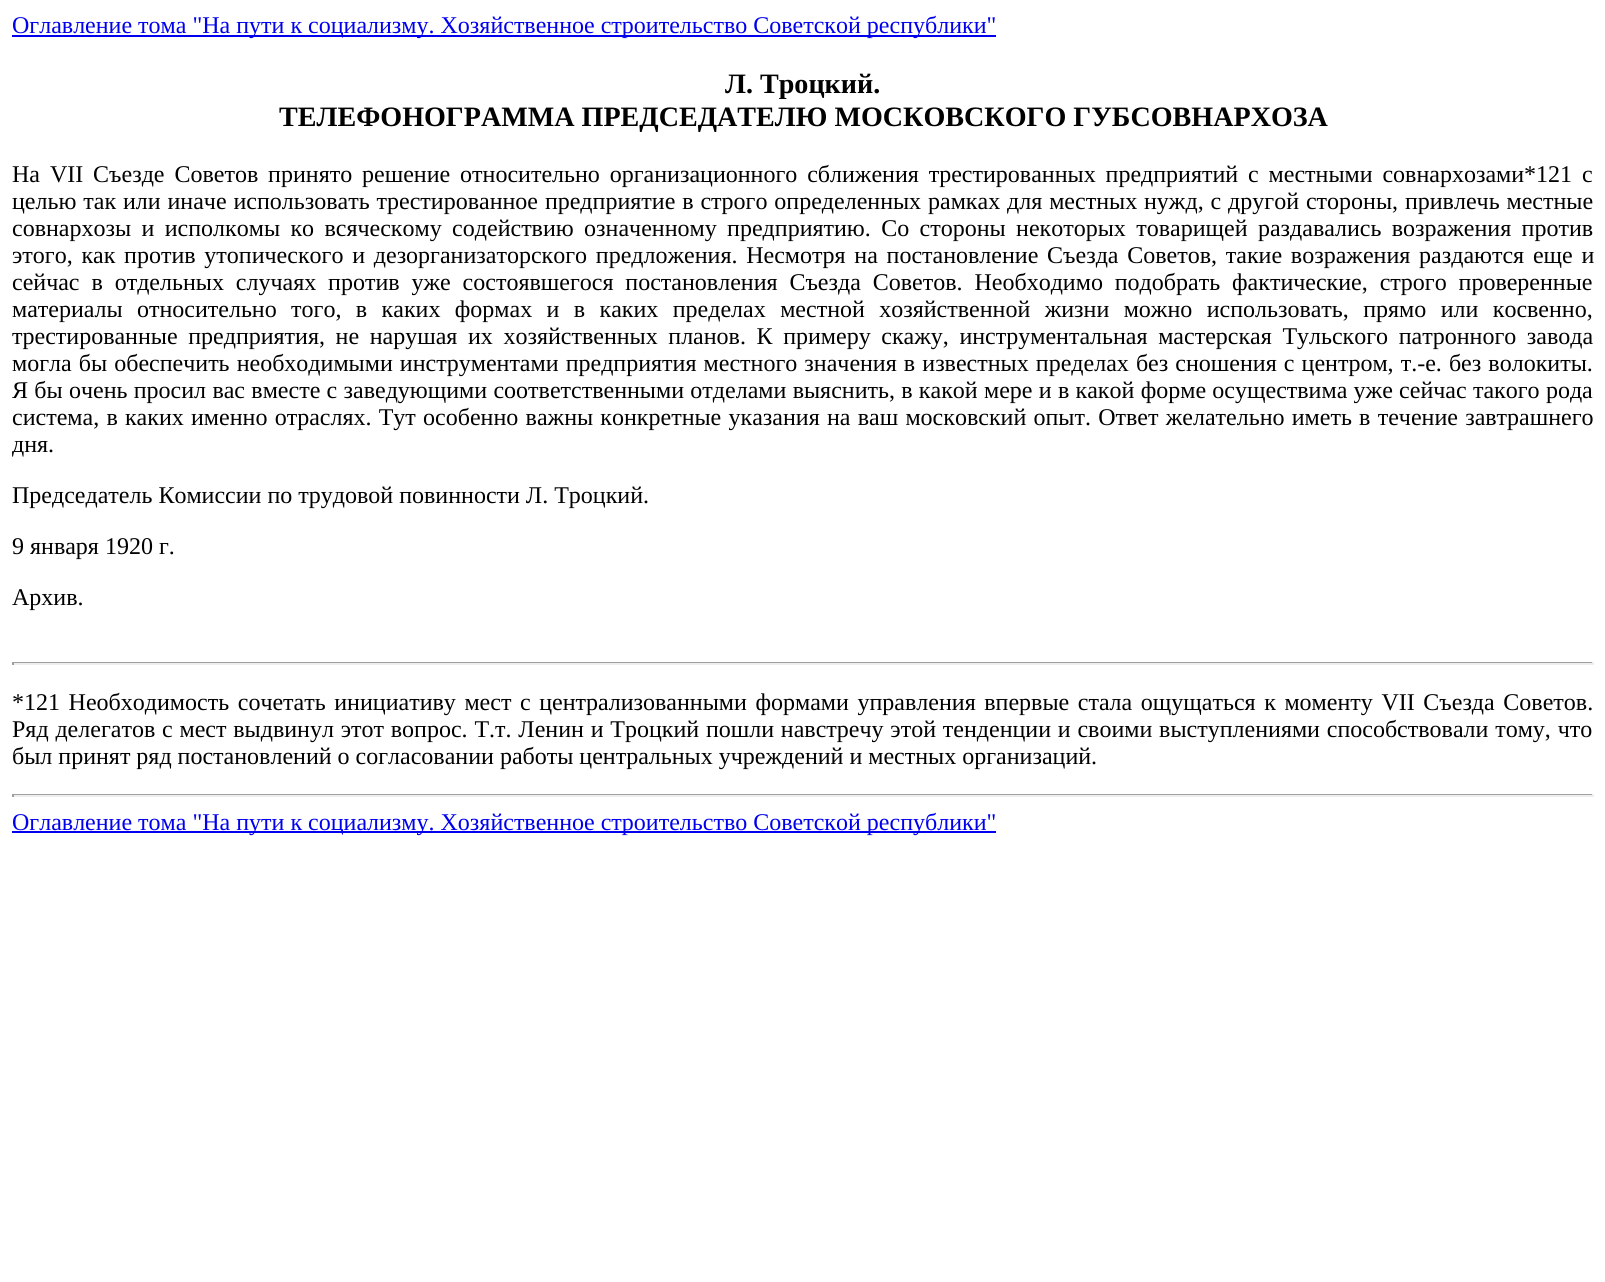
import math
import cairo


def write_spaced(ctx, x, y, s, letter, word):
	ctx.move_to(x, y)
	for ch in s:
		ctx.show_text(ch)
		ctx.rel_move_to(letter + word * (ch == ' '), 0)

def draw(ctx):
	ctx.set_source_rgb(1, 1, 1)
	ctx.paint()
	ctx.set_source_rgb(0, 0, 0.933)
	ctx.rectangle(12, 35, 984, 2)
	ctx.fill()
	ctx.select_font_face('Liberation Serif')
	ctx.set_font_size(24)
	ctx.move_to(12, 33)
	ctx.show_text('Оглавление тома "На пути к социализму. Хозяйственное строительство Советской республики"')
	ctx.select_font_face('Liberation Serif', cairo.FONT_SLANT_NORMAL, cairo.FONT_WEIGHT_BOLD)
	ctx.set_font_size(28.1)
	ctx.set_source_rgb(0, 0, 0)
	ctx.move_to(725, 93)
	ctx.show_text('Л. Троцкий.')
	ctx.move_to(279, 126)
	ctx.show_text('ТЕЛЕФОНОГРАММА ПРЕДСЕДАТЕЛЮ МОСКОВСКОГО ГУБСОВНАРХОЗА')
	ctx.select_font_face('Liberation Serif')
	ctx.set_font_size(24)
	write_spaced(ctx, 12, 182, 'На VII Съезде Советов принято решение относительно организационного сближения трестированных предприятий с местными совнархозами*121 с', 0, 3.9)
	write_spaced(ctx, 12, 209, 'целью так или иначе использовать трестированное предприятие в строго определенных рамках для местных нужд, с другой стороны, привлечь местные', 0, 0.9)
	write_spaced(ctx, 12, 236, 'совнархозы и исполкомы ко всяческому содействию означенному предприятию. Со стороны некоторых товарищей раздавались возражения против', 0, 4.4)
	write_spaced(ctx, 12, 263, 'этого, как против утопического и дезорганизаторского предложения. Несмотря на постановление Съезда Советов, такие возражения раздаются еще и', 0, 2.75)
	write_spaced(ctx, 12, 290, 'сейчас в отдельных случаях против уже состоявшегося постановления Съезда Советов. Необходимо подобрать фактические, строго проверенные', 0, 5.9)
	write_spaced(ctx, 12, 317, 'материалы относительно того, в каких формах и в каких пределах местной хозяйственной жизни можно использовать, прямо или косвенно,', 0, 8.4)
	write_spaced(ctx, 12, 344, 'трестированные предприятия, не нарушая их хозяйственных планов. К примеру скажу, инструментальная мастерская Тульского патронного завода', 0, 4.6)
	write_spaced(ctx, 12, 371, 'могла бы обеспечить необходимыми инструментами предприятия местного значения в известных пределах без сношения с центром, т.-е. без волокиты.', 0, 1.1)
	write_spaced(ctx, 12, 398, 'Я бы очень просил вас вместе с заведующими соответственными отделами выяснить, в какой мере и в какой форме осуществима уже сейчас такого рода', 0, 0.3)
	write_spaced(ctx, 12, 425, 'система, в каких именно отраслях. Тут особенно важны конкретные указания на ваш московский опыт. Ответ желательно иметь в течение завтрашнего', 0, 1.25)
	for x, y, s in [
		(12, 452, 'дня.'),
		(12, 503, 'Председатель Комиссии по трудовой повинности Л. Троцкий.'),
		(12, 554, '9 января 1920 г.'),
		(12, 605, 'Архив.'),
	]:
		ctx.move_to(x, y)
		ctx.show_text(s)
	ctx.set_source_rgb(0.624, 0.624, 0.624)
	ctx.rectangle(12, 662, 1581, 1)
	ctx.fill()
	ctx.set_source_rgb(0.933, 0.933, 0.933)
	ctx.rectangle(1592, 662, 2, 3)
	ctx.rectangle(12, 663, 1581, 2)
	ctx.fill()
	ctx.set_source_rgb(0.624, 0.624, 0.624)
	ctx.rectangle(12, 662, 2, 3)
	ctx.fill()
	ctx.set_source_rgb(0, 0, 0)
	write_spaced(ctx, 12, 710, '*121 Необходимость сочетать инициативу мест с централизованными формами управления впервые стала ощущаться к моменту VII Съезда Советов.', 0, 2.6)
	write_spaced(ctx, 12, 737, 'Ряд делегатов с мест выдвинул этот вопрос. Т.т. Ленин и Троцкий пошли навстречу этой тенденции и своими выступлениями способствовали тому, что', 0, 0.8)
	ctx.move_to(12, 764)
	ctx.show_text('был принят ряд постановлений о согласовании работы центральных учреждений и местных организаций.')
	ctx.set_source_rgb(0.624, 0.624, 0.624)
	ctx.rectangle(12, 794, 1581, 1)
	ctx.fill()
	ctx.set_source_rgb(0.933, 0.933, 0.933)
	ctx.rectangle(1592, 794, 2, 3)
	ctx.rectangle(12, 795, 1581, 2)
	ctx.fill()
	ctx.set_source_rgb(0.624, 0.624, 0.624)
	ctx.rectangle(12, 794, 2, 3)
	ctx.fill()
	ctx.set_source_rgb(0, 0, 0.933)
	ctx.rectangle(12, 831, 984, 2)
	ctx.fill()
	ctx.move_to(12, 830)
	ctx.show_text('Оглавление тома "На пути к социализму. Хозяйственное строительство Советской республики"')


surface = cairo.ImageSurface(cairo.FORMAT_RGB24, 1605, 1282)
ctx = cairo.Context(surface)
options = cairo.FontOptions()
options.set_hint_metrics(cairo.HINT_METRICS_OFF)
options.set_hint_style(cairo.HINT_STYLE_NONE)
ctx.set_font_options(options)
ctx.set_miter_limit(4)
draw(ctx)
surface.write_to_png('image.png')
